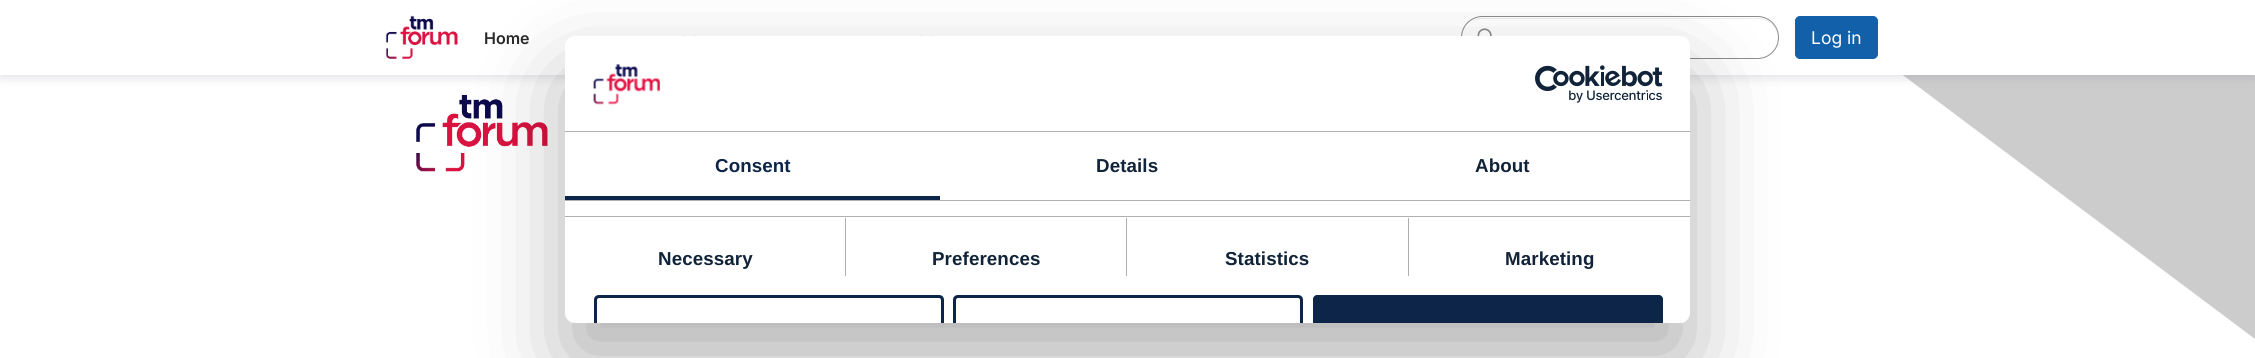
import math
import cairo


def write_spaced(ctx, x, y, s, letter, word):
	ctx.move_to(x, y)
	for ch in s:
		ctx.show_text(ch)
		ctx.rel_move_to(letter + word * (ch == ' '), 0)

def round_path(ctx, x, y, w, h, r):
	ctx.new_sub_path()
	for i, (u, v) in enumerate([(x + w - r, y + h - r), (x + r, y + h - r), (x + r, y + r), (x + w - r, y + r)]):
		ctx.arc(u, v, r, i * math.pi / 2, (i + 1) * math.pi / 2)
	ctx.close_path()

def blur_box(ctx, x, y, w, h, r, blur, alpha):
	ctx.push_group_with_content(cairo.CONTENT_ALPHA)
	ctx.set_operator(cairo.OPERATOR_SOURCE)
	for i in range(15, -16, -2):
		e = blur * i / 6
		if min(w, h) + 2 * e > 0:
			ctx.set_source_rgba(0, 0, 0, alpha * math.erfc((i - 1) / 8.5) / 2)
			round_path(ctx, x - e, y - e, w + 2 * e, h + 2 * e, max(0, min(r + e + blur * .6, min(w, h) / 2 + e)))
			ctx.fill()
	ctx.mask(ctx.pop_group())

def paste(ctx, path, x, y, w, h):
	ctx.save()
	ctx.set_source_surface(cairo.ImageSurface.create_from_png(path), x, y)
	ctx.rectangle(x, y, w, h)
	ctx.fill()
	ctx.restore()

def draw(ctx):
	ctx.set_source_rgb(1, 1, 1)
	ctx.paint()
	ctx.set_source_rgb(0.8, 0.8, 0.8)
	ctx.new_path()
	ctx.move_to(2255, 58)
	ctx.line_to(2255, 339)
	ctx.line_to(1880, 58)
	ctx.close_path()
	ctx.fill()
	ctx.set_source_rgb(0.514, 0.529, 0.569)
	blur_box(ctx, 0, 3, 2255, 75, 0, 5, 0.24)
	ctx.set_source_rgb(1, 1, 1)
	ctx.rectangle(0, 0, 2255, 75)
	ctx.fill()
	paste(ctx, 'media/1.png', 385, 15, 73, 44)
	ctx.select_font_face('Inter SemiBold')
	ctx.set_font_size(16)
	ctx.set_source_rgb(0.161, 0.161, 0.161)
	ctx.move_to(484, 44)
	ctx.show_text('Home')
	paste(ctx, 'media/2.png', 684, 35, 12, 1)
	paste(ctx, 'media/3.png', 920, 35, 12, 1)
	ctx.set_source_rgb(0.925, 0.925, 0.925)
	ctx.new_path()
	ctx.move_to(1482, 19)
	ctx.line_to(1758, 19)
	ctx.curve_to(1769, 19, 1778, 28, 1778, 39)
	ctx.line_to(1778, 38)
	ctx.curve_to(1778, 27, 1769, 18, 1758, 18)
	ctx.line_to(1483, 18)
	ctx.curve_to(1477, 18, 1472, 21, 1468, 25)
	ctx.curve_to(1472, 21, 1477, 19, 1482, 19)
	ctx.close_path()
	ctx.fill()
	round_path(ctx, 1461.5, 16.5, 317, 42, 21)
	ctx.set_source_rgb(0.549, 0.549, 0.549)
	ctx.set_line_width(1)
	ctx.stroke()
	paste(ctx, 'media/4.png', 1477, 28, 15, 8)
	ctx.set_source_rgb(0.078, 0.376, 0.667)
	round_path(ctx, 1795.5, 16.5, 82, 42, 4.5)
	ctx.fill_preserve()
	ctx.stroke()
	ctx.select_font_face('Inter')
	ctx.set_font_size(17.5)
	ctx.set_source_rgb(1, 1, 1)
	ctx.move_to(1811, 44)
	ctx.show_text('Log in')
	paste(ctx, 'media/5.png', 416, 95, 132, 77)
	ctx.set_source_rgb(0, 0, 0)
	blur_box(ctx, 565, 76, 1125, 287, 10, 42.5, 0.3)
	ctx.set_source_rgb(1, 1, 1)
	round_path(ctx, 565, 36, 1125, 287, 10)
	ctx.fill()
	ctx.set_source_rgb(0.686, 0.686, 0.686)
	ctx.rectangle(565, 131, 1125, 1)
	ctx.fill()
	paste(ctx, 'media/6.png', 593, 64, 67, 41)
	paste(ctx, 'media/7.png', 1535, 65, 128, 38)
	ctx.rectangle(565, 200, 1125, 1)
	ctx.fill()
	ctx.set_source_rgb(0.051, 0.145, 0.282)
	ctx.rectangle(565, 196, 375, 4)
	ctx.fill()
	ctx.select_font_face('Liberation Sans', cairo.FONT_SLANT_NORMAL, cairo.FONT_WEIGHT_BOLD)
	ctx.set_font_size(18.75)
	write_spaced(ctx, 715, 172, 'Consent', 0.1, 0)
	ctx.set_source_rgb(0.063, 0.137, 0.22)
	write_spaced(ctx, 1096, 172, 'Details', 0.1, 0)
	write_spaced(ctx, 1475, 172, 'About', 0.1, 0)
	ctx.set_source_rgb(0.686, 0.686, 0.686)
	ctx.rectangle(565, 216, 1125, 1)
	ctx.fill()
	ctx.rectangle(845, 218, 1, 58)
	ctx.fill()
	ctx.set_source_rgb(0.063, 0.137, 0.22)
	write_spaced(ctx, 658, 265, 'Necessary', 0.1, 0)
	ctx.set_source_rgb(0.686, 0.686, 0.686)
	ctx.rectangle(1126, 218, 1, 58)
	ctx.fill()
	ctx.set_source_rgb(0.063, 0.137, 0.22)
	write_spaced(ctx, 932, 265, 'Preferences', 0.1, 0)
	ctx.set_source_rgb(0.686, 0.686, 0.686)
	ctx.rectangle(1408, 218, 1, 58)
	ctx.fill()
	ctx.set_source_rgb(0.063, 0.137, 0.22)
	write_spaced(ctx, 1225, 265, 'Statistics', 0.1, 0)
	write_spaced(ctx, 1505, 265, 'Marketing', 0.1, 0)
	ctx.set_source_rgb(0.051, 0.145, 0.282)
	ctx.new_path()
	ctx.move_to(599, 295)
	ctx.curve_to(596, 295, 594, 297, 594, 300)
	ctx.line_to(594, 323)
	ctx.line_to(597, 323)
	ctx.line_to(597, 300)
	ctx.curve_to(597, 299, 598, 298, 599, 298)
	ctx.line_to(939, 298)
	ctx.curve_to(940, 298, 941, 299, 941, 300)
	ctx.line_to(941, 323)
	ctx.line_to(944, 323)
	ctx.line_to(944, 300)
	ctx.curve_to(944, 297, 942, 295, 939, 295)
	ctx.close_path()
	ctx.fill()
	ctx.new_path()
	ctx.move_to(958, 295)
	ctx.curve_to(955, 295, 953, 297, 953, 300)
	ctx.line_to(953, 323)
	ctx.line_to(956, 323)
	ctx.line_to(956, 300)
	ctx.curve_to(956, 299, 957, 298, 958, 298)
	ctx.line_to(1298, 298)
	ctx.curve_to(1299, 298, 1300, 299, 1300, 300)
	ctx.line_to(1300, 323)
	ctx.line_to(1303, 323)
	ctx.line_to(1303, 300)
	ctx.curve_to(1303, 297, 1301, 295, 1298, 295)
	ctx.close_path()
	ctx.fill()
	ctx.new_path()
	ctx.move_to(1318, 295)
	ctx.line_to(1658, 295)
	ctx.curve_to(1661, 295, 1663, 297, 1663, 300)
	ctx.line_to(1663, 323)
	ctx.line_to(1313, 323)
	ctx.line_to(1313, 300)
	ctx.curve_to(1313, 297, 1315, 295, 1318, 295)
	ctx.close_path()
	ctx.fill()
	ctx.new_path()
	ctx.move_to(1318, 295)
	ctx.curve_to(1315, 295, 1313, 297, 1313, 300)
	ctx.line_to(1313, 323)
	ctx.line_to(1316, 323)
	ctx.line_to(1316, 300)
	ctx.curve_to(1316, 299, 1317, 298, 1318, 298)
	ctx.line_to(1658, 298)
	ctx.curve_to(1659, 298, 1660, 299, 1660, 300)
	ctx.line_to(1660, 323)
	ctx.line_to(1663, 323)
	ctx.line_to(1663, 300)
	ctx.curve_to(1663, 297, 1661, 295, 1658, 295)
	ctx.close_path()
	ctx.fill()
	ctx.set_source_rgb(1, 1, 1)
	ctx.rectangle(1681, 322, 2, 1)
	ctx.fill()


surface = cairo.ImageSurface(cairo.FORMAT_RGB24, 2255, 358)
ctx = cairo.Context(surface)
options = cairo.FontOptions()
options.set_hint_metrics(cairo.HINT_METRICS_OFF)
options.set_hint_style(cairo.HINT_STYLE_NONE)
ctx.set_font_options(options)
ctx.set_miter_limit(4)
draw(ctx)
surface.write_to_png('image.png')
